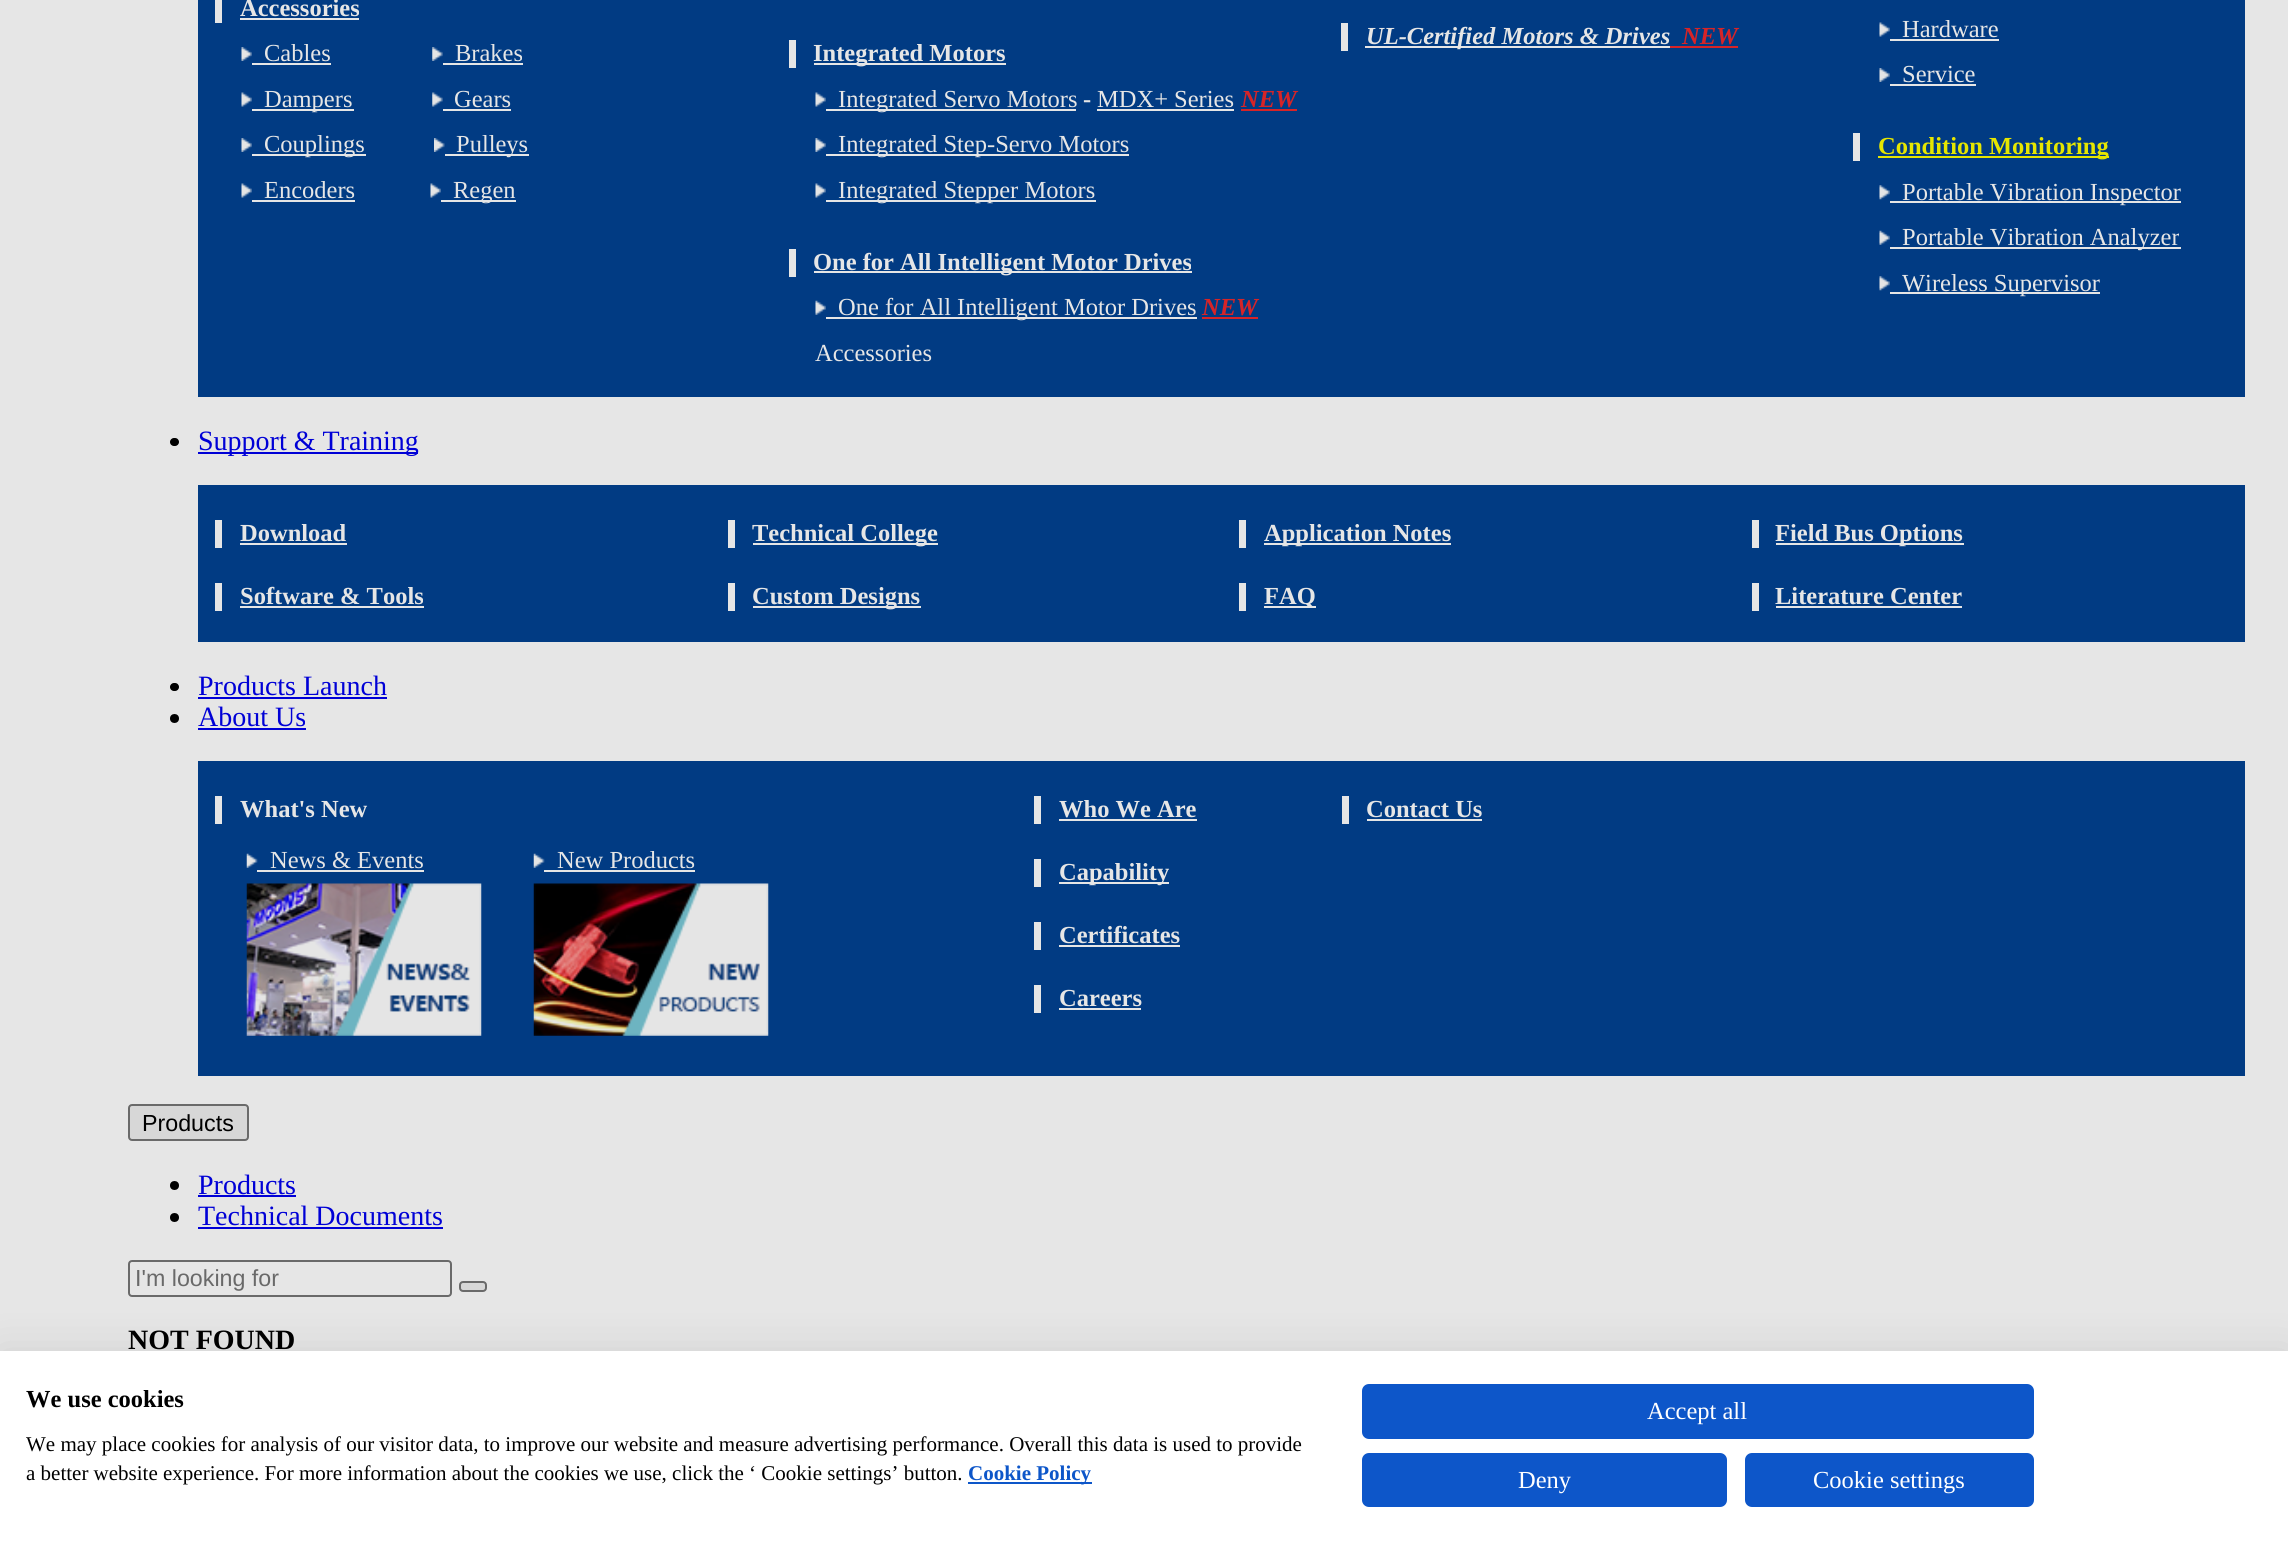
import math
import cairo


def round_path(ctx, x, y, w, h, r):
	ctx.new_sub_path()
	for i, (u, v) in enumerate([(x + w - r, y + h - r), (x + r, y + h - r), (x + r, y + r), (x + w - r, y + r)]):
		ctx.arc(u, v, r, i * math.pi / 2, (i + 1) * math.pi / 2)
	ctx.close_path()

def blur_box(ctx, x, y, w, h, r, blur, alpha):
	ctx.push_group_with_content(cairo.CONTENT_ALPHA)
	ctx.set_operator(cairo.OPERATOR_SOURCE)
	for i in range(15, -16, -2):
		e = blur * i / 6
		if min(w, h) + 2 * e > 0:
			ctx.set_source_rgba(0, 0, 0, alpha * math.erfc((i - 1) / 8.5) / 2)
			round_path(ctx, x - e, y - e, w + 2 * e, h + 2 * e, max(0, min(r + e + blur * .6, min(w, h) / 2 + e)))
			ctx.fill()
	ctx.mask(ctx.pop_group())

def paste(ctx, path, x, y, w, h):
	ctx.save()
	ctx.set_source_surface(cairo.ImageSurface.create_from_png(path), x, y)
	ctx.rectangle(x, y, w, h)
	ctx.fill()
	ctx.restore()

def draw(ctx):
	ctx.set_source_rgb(0.902, 0.902, 0.902)
	ctx.paint()
	ctx.set_source_rgb(0.004, 0.231, 0.514)
	ctx.rectangle(198, 0, 2047, 397)
	ctx.fill()
	ctx.set_source_rgb(0.902, 0.902, 0.902)
	ctx.rectangle(215, 0, 7, 23)
	ctx.fill()
	ctx.select_font_face('Liberation Serif', cairo.FONT_SLANT_NORMAL, cairo.FONT_WEIGHT_BOLD)
	ctx.set_font_size(24.5)
	ctx.move_to(240, 16)
	ctx.show_text('Accessories')
	ctx.rectangle(240, 18, 119, 2)
	ctx.fill()
	paste(ctx, 'media/1.png', 241, 47, 11, 14)
	ctx.select_font_face('Liberation Serif')
	ctx.move_to(264, 61)
	ctx.show_text('Cables')
	ctx.rectangle(252, 63, 79, 2)
	ctx.fill()
	paste(ctx, 'media/2.png', 432, 47, 11, 14)
	ctx.move_to(455, 61)
	ctx.show_text('Brakes')
	ctx.rectangle(443, 63, 80, 2)
	ctx.fill()
	paste(ctx, 'media/3.png', 241, 92, 11, 15)
	ctx.rectangle(252, 109, 102, 2)
	ctx.fill()
	ctx.move_to(264, 107)
	ctx.show_text('Dampers')
	paste(ctx, 'media/4.png', 432, 92, 11, 15)
	ctx.move_to(454, 107)
	ctx.show_text('Gears')
	ctx.rectangle(443, 109, 68, 2)
	ctx.fill()
	paste(ctx, 'media/1.png', 241, 138, 11, 14)
	ctx.rectangle(252, 154, 114, 2)
	ctx.fill()
	ctx.move_to(264, 152)
	ctx.show_text('Couplings')
	paste(ctx, 'media/5.png', 434, 138, 11, 14)
	ctx.rectangle(445, 154, 84, 2)
	ctx.fill()
	ctx.move_to(456, 152)
	ctx.show_text('Pulleys')
	paste(ctx, 'media/3.png', 241, 183, 11, 15)
	ctx.move_to(264, 198)
	ctx.show_text('Encoders')
	ctx.rectangle(252, 200, 103, 2)
	ctx.fill()
	paste(ctx, 'media/6.png', 430, 183, 11, 15)
	ctx.rectangle(441, 200, 75, 2)
	ctx.fill()
	ctx.move_to(453, 198)
	ctx.show_text('Regen')
	ctx.rectangle(1341, 23, 7, 28)
	ctx.fill()
	ctx.rectangle(1365, 46, 305, 2)
	ctx.fill()
	ctx.select_font_face('Liberation Serif', cairo.FONT_SLANT_ITALIC, cairo.FONT_WEIGHT_BOLD)
	ctx.move_to(1366, 44)
	ctx.show_text('UL-Certified Motors & Drives')
	ctx.set_source_rgb(0.843, 0.141, 0.153)
	ctx.move_to(1682, 44)
	ctx.show_text('NEW')
	ctx.rectangle(1670, 46, 68, 2)
	ctx.fill()
	paste(ctx, 'media/6.png', 1879, 22, 11, 15)
	ctx.select_font_face('Liberation Serif')
	ctx.set_source_rgb(0.902, 0.902, 0.902)
	ctx.move_to(1902, 37)
	ctx.show_text('Hardware')
	ctx.rectangle(1890, 39, 109, 2)
	ctx.fill()
	paste(ctx, 'media/7.png', 1879, 68, 11, 14)
	ctx.move_to(1902, 82)
	ctx.show_text('Service')
	ctx.rectangle(1890, 84, 86, 2)
	ctx.rectangle(1853, 133, 7, 28)
	ctx.fill()
	ctx.set_source_rgb(0.902, 0.902, 0)
	ctx.rectangle(1878, 156, 231, 2)
	ctx.fill()
	ctx.select_font_face('Liberation Serif', cairo.FONT_SLANT_NORMAL, cairo.FONT_WEIGHT_BOLD)
	ctx.move_to(1878, 154)
	ctx.show_text('Condition Monitoring')
	paste(ctx, 'media/8.png', 1879, 185, 11, 15)
	ctx.set_source_rgb(0.902, 0.902, 0.902)
	ctx.rectangle(1890, 201, 291, 2)
	ctx.fill()
	ctx.select_font_face('Liberation Serif')
	ctx.move_to(1902, 200)
	ctx.show_text('Portable Vibration Inspector')
	paste(ctx, 'media/9.png', 1879, 230, 11, 15)
	ctx.rectangle(1890, 247, 291, 2)
	ctx.fill()
	ctx.move_to(1902, 245)
	ctx.show_text('Portable Vibration Analyzer')
	paste(ctx, 'media/8.png', 1879, 276, 11, 15)
	ctx.rectangle(1890, 292, 210, 2)
	ctx.fill()
	ctx.move_to(1902, 291)
	ctx.show_text('Wireless Supervisor')
	ctx.rectangle(789, 40, 7, 28)
	ctx.fill()
	ctx.rectangle(814, 63, 192, 2)
	ctx.fill()
	ctx.select_font_face('Liberation Serif', cairo.FONT_SLANT_NORMAL, cairo.FONT_WEIGHT_BOLD)
	ctx.move_to(813, 61)
	ctx.show_text('Integrated Motors')
	paste(ctx, 'media/6.png', 815, 92, 11, 15)
	ctx.rectangle(826, 109, 250, 2)
	ctx.fill()
	ctx.select_font_face('Liberation Serif')
	ctx.move_to(838, 107)
	ctx.show_text('Integrated Servo Motors')
	ctx.select_font_face('Liberation Serif', cairo.FONT_SLANT_NORMAL, cairo.FONT_WEIGHT_BOLD)
	ctx.move_to(1083, 107)
	ctx.show_text('-')
	ctx.select_font_face('Liberation Serif')
	ctx.move_to(1097, 107)
	ctx.show_text('MDX+ Series')
	ctx.rectangle(1097, 109, 137, 2)
	ctx.fill()
	ctx.select_font_face('Liberation Serif', cairo.FONT_SLANT_ITALIC, cairo.FONT_WEIGHT_BOLD)
	ctx.set_source_rgb(0.843, 0.141, 0.153)
	ctx.move_to(1241, 107)
	ctx.show_text('NEW')
	ctx.rectangle(1241, 109, 56, 2)
	ctx.fill()
	paste(ctx, 'media/7.png', 815, 138, 11, 14)
	ctx.set_source_rgb(0.902, 0.902, 0.902)
	ctx.rectangle(826, 154, 303, 2)
	ctx.fill()
	ctx.select_font_face('Liberation Serif')
	ctx.move_to(838, 152)
	ctx.show_text('Integrated Step-Servo Motors')
	paste(ctx, 'media/6.png', 815, 183, 11, 15)
	ctx.rectangle(826, 200, 270, 2)
	ctx.fill()
	ctx.move_to(838, 198)
	ctx.show_text('Integrated Stepper Motors')
	ctx.rectangle(789, 249, 7, 28)
	ctx.fill()
	ctx.rectangle(814, 271, 378, 2)
	ctx.fill()
	ctx.select_font_face('Liberation Serif', cairo.FONT_SLANT_NORMAL, cairo.FONT_WEIGHT_BOLD)
	ctx.move_to(813, 270)
	ctx.show_text('One for All Intelligent Motor Drives')
	paste(ctx, 'media/9.png', 815, 300, 11, 15)
	ctx.rectangle(826, 317, 371, 2)
	ctx.fill()
	ctx.select_font_face('Liberation Serif')
	ctx.move_to(838, 315)
	ctx.show_text('One for All Intelligent Motor Drives')
	ctx.select_font_face('Liberation Serif', cairo.FONT_SLANT_ITALIC, cairo.FONT_WEIGHT_BOLD)
	ctx.set_source_rgb(0.843, 0.141, 0.153)
	ctx.move_to(1202, 315)
	ctx.show_text('NEW')
	ctx.rectangle(1202, 317, 56, 2)
	ctx.fill()
	ctx.select_font_face('Liberation Serif')
	ctx.set_source_rgb(0.902, 0.902, 0.902)
	ctx.move_to(815, 361)
	ctx.show_text('Accessories')
	ctx.set_source_rgb(0, 0, 0)
	round_path(ctx, 170, 438, 9, 8, 4)
	ctx.fill()
	ctx.set_source_rgb(0, 0, 0.839)
	ctx.rectangle(198, 452, 220, 2)
	ctx.fill()
	ctx.set_font_size(28)
	ctx.move_to(198, 450)
	ctx.show_text('Support & Training')
	ctx.set_source_rgb(0.004, 0.231, 0.514)
	ctx.rectangle(198, 485, 2047, 157)
	ctx.fill()
	ctx.set_source_rgb(0.902, 0.902, 0.902)
	ctx.rectangle(215, 520, 7, 28)
	ctx.fill()
	ctx.select_font_face('Liberation Serif', cairo.FONT_SLANT_NORMAL, cairo.FONT_WEIGHT_BOLD)
	ctx.set_font_size(24.5)
	ctx.move_to(240, 541)
	ctx.show_text('Download')
	ctx.rectangle(240, 543, 107, 2)
	ctx.fill()
	ctx.rectangle(215, 583, 7, 28)
	ctx.fill()
	ctx.move_to(240, 604)
	ctx.show_text('Software & Tools')
	ctx.rectangle(240, 606, 184, 2)
	ctx.rectangle(728, 520, 7, 28)
	ctx.rectangle(753, 543, 185, 2)
	ctx.fill()
	ctx.move_to(752, 541)
	ctx.show_text('Technical College')
	ctx.rectangle(728, 583, 7, 28)
	ctx.fill()
	ctx.rectangle(753, 606, 168, 2)
	ctx.fill()
	ctx.move_to(752, 604)
	ctx.show_text('Custom Designs')
	ctx.rectangle(1239, 520, 7, 28)
	ctx.fill()
	ctx.rectangle(1264, 543, 187, 2)
	ctx.fill()
	ctx.move_to(1264, 541)
	ctx.show_text('Application Notes')
	ctx.rectangle(1239, 583, 7, 28)
	ctx.fill()
	ctx.rectangle(1264, 606, 52, 2)
	ctx.fill()
	ctx.move_to(1264, 604)
	ctx.show_text('FAQ')
	ctx.rectangle(1752, 520, 7, 28)
	ctx.fill()
	ctx.rectangle(1776, 543, 188, 2)
	ctx.fill()
	ctx.move_to(1775, 541)
	ctx.show_text('Field Bus Options')
	ctx.rectangle(1752, 583, 7, 28)
	ctx.fill()
	ctx.move_to(1775, 604)
	ctx.show_text('Literature Center')
	ctx.rectangle(1776, 606, 186, 2)
	ctx.fill()
	ctx.set_source_rgb(0, 0, 0)
	round_path(ctx, 170, 683, 9, 8, 4)
	ctx.fill()
	ctx.select_font_face('Liberation Serif')
	ctx.set_font_size(28)
	ctx.set_source_rgb(0, 0, 0.839)
	ctx.move_to(198, 695)
	ctx.show_text('Products Launch')
	ctx.rectangle(198, 697, 189, 2)
	ctx.fill()
	ctx.set_source_rgb(0, 0, 0)
	ctx.arc(174.5, 718.5, 4.5, 0, 2 * math.pi)
	ctx.fill()
	ctx.set_source_rgb(0, 0, 0.839)
	ctx.move_to(198, 726)
	ctx.show_text('About Us')
	ctx.rectangle(198, 728, 108, 2)
	ctx.fill()
	ctx.set_source_rgb(0.004, 0.231, 0.514)
	ctx.rectangle(198, 761, 2047, 315)
	ctx.fill()
	ctx.set_source_rgb(0.902, 0.902, 0.902)
	ctx.rectangle(215, 796, 7, 28)
	ctx.fill()
	ctx.select_font_face('Liberation Serif', cairo.FONT_SLANT_NORMAL, cairo.FONT_WEIGHT_BOLD)
	ctx.set_font_size(24.5)
	ctx.move_to(240, 817)
	ctx.show_text('What\'s New')
	paste(ctx, 'media/10.png', 246, 853, 12, 15)
	ctx.select_font_face('Liberation Serif')
	ctx.move_to(270, 868)
	ctx.show_text('News & Events')
	ctx.rectangle(257, 870, 167, 2)
	ctx.fill()
	paste(ctx, 'media/11.png', 246, 883, 236, 153)
	paste(ctx, 'media/12.png', 533, 853, 12, 15)
	ctx.move_to(557, 868)
	ctx.show_text('New Products')
	ctx.rectangle(544, 870, 151, 2)
	ctx.fill()
	paste(ctx, 'media/13.png', 533, 883, 236, 153)
	ctx.rectangle(1034, 796, 7, 28)
	ctx.fill()
	ctx.select_font_face('Liberation Serif', cairo.FONT_SLANT_NORMAL, cairo.FONT_WEIGHT_BOLD)
	ctx.move_to(1059, 817)
	ctx.show_text('Who We Are')
	ctx.rectangle(1059, 819, 138, 2)
	ctx.rectangle(1034, 859, 7, 28)
	ctx.rectangle(1059, 882, 110, 2)
	ctx.fill()
	ctx.move_to(1059, 880)
	ctx.show_text('Capability')
	ctx.rectangle(1034, 922, 7, 28)
	ctx.fill()
	ctx.move_to(1059, 943)
	ctx.show_text('Certificates')
	ctx.rectangle(1059, 945, 121, 2)
	ctx.fill()
	ctx.rectangle(1034, 985, 7, 28)
	ctx.fill()
	ctx.move_to(1059, 1006)
	ctx.show_text('Careers')
	ctx.rectangle(1059, 1008, 82, 2)
	ctx.fill()
	ctx.rectangle(1342, 796, 7, 28)
	ctx.fill()
	ctx.move_to(1366, 817)
	ctx.show_text('Contact Us')
	ctx.rectangle(1367, 819, 115, 2)
	ctx.fill()
	ctx.set_source_rgb(0.843, 0.843, 0.843)
	round_path(ctx, 129, 1105, 119, 35, 3)
	ctx.fill_preserve()
	ctx.set_source_rgb(0.416, 0.416, 0.416)
	ctx.stroke()
	ctx.select_font_face('Liberation Sans')
	ctx.set_font_size(23.25)
	ctx.set_source_rgb(0, 0, 0)
	ctx.move_to(142, 1131)
	ctx.show_text('Products')
	ctx.new_path()
	ctx.arc(174.5, 1185.5, 4.5, 0, 2 * math.pi)
	ctx.fill()
	ctx.select_font_face('Liberation Serif')
	ctx.set_font_size(28)
	ctx.set_source_rgb(0, 0, 0.839)
	ctx.move_to(198, 1194)
	ctx.show_text('Products')
	ctx.rectangle(198, 1195, 98, 2)
	ctx.fill()
	ctx.set_source_rgb(0, 0, 0)
	ctx.arc(174.5, 1217.5, 4.5, 0, 2 * math.pi)
	ctx.fill()
	ctx.set_source_rgb(0, 0, 0.839)
	ctx.move_to(198, 1225)
	ctx.show_text('Technical Documents')
	ctx.rectangle(198, 1227, 245, 2)
	ctx.fill()
	round_path(ctx, 129, 1261, 322, 35, 3)
	ctx.set_source_rgb(0.416, 0.416, 0.416)
	ctx.stroke()
	ctx.select_font_face('Liberation Sans')
	ctx.set_font_size(23.25)
	ctx.set_source_rgb(0.412, 0.412, 0.412)
	ctx.move_to(135, 1286)
	ctx.show_text('I\'m looking for')
	ctx.set_source_rgb(0.843, 0.843, 0.843)
	round_path(ctx, 460, 1282, 26, 9, 3)
	ctx.fill_preserve()
	ctx.set_source_rgb(0.416, 0.416, 0.416)
	ctx.stroke()
	ctx.select_font_face('Liberation Serif', cairo.FONT_SLANT_NORMAL, cairo.FONT_WEIGHT_BOLD)
	ctx.set_font_size(28)
	ctx.set_source_rgb(0, 0, 0)
	ctx.move_to(128, 1349)
	ctx.show_text('NOT FOUND')
	ctx.set_source_rgb(0, 0, 0)
	blur_box(ctx, 0, 1351, 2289, 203, 0, 21, 0.1)
	ctx.set_source_rgb(1, 1, 1)
	ctx.rectangle(0, 1351, 2288, 202)
	ctx.fill()
	ctx.set_font_size(24.5)
	ctx.set_source_rgb(0, 0, 0)
	ctx.move_to(26, 1407)
	ctx.show_text('We use cookies')
	ctx.select_font_face('Liberation Serif')
	ctx.set_font_size(21)
	ctx.move_to(26, 1451)
	ctx.show_text('We may place cookies for analysis of our visitor data, to improve our website and measure advertising performance. Overall this data is used to provide')
	ctx.move_to(26, 1480)
	ctx.show_text('a better website experience. For more information about the cookies we use, click the ‘ Cookie settings’ button.')
	ctx.set_source_rgb(0.051, 0.337, 0.788)
	ctx.rectangle(968, 1482, 124, 2)
	ctx.fill()
	ctx.select_font_face('Liberation Serif', cairo.FONT_SLANT_NORMAL, cairo.FONT_WEIGHT_BOLD)
	ctx.move_to(968, 1480)
	ctx.show_text('Cookie Policy')
	round_path(ctx, 1363, 1385, 670, 53, 6)
	ctx.fill_preserve()
	ctx.stroke()
	ctx.select_font_face('Liberation Serif')
	ctx.set_font_size(24.5)
	ctx.set_source_rgb(1, 1, 1)
	ctx.move_to(1647, 1419)
	ctx.show_text('Accept all')
	ctx.set_source_rgb(0.051, 0.337, 0.788)
	round_path(ctx, 1363, 1454, 363, 52, 6)
	ctx.fill_preserve()
	ctx.stroke()
	ctx.set_source_rgb(1, 1, 1)
	ctx.move_to(1518, 1488)
	ctx.show_text('Deny')
	ctx.set_source_rgb(0.051, 0.337, 0.788)
	round_path(ctx, 1746, 1454, 287, 52, 6)
	ctx.fill_preserve()
	ctx.stroke()
	ctx.set_source_rgb(1, 1, 1)
	ctx.move_to(1813, 1488)
	ctx.show_text('Cookie settings')


surface = cairo.ImageSurface(cairo.FORMAT_RGB24, 2288, 1553)
ctx = cairo.Context(surface)
options = cairo.FontOptions()
options.set_hint_metrics(cairo.HINT_METRICS_OFF)
options.set_hint_style(cairo.HINT_STYLE_NONE)
ctx.set_font_options(options)
ctx.set_miter_limit(4)
draw(ctx)
surface.write_to_png('image.png')
